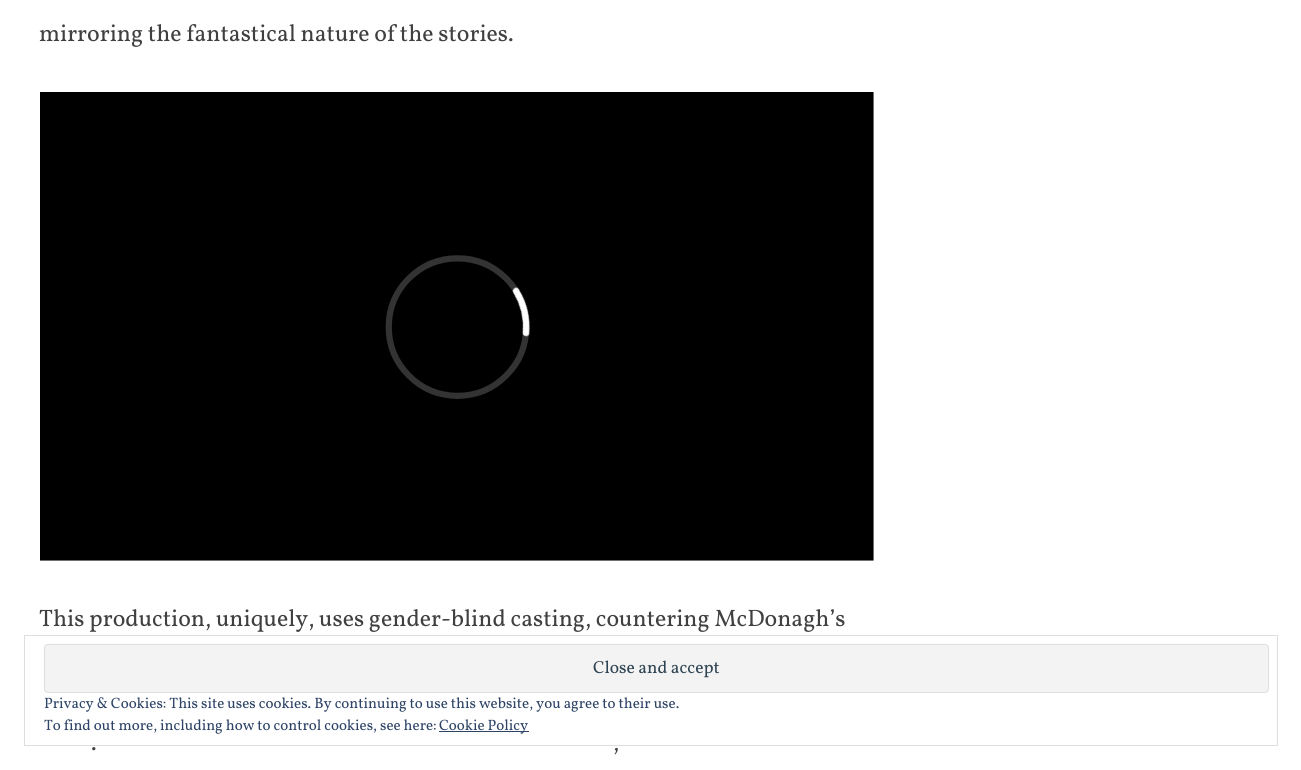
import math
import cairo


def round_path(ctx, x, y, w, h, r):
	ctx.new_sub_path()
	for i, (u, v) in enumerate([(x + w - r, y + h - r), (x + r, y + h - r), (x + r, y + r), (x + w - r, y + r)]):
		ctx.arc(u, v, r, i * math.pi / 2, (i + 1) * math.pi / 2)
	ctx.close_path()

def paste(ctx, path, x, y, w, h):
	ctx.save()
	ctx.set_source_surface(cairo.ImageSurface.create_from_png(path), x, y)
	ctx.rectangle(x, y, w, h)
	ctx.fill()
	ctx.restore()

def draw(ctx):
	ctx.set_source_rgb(1, 1, 1)
	ctx.paint()
	ctx.select_font_face('Vollkorn')
	ctx.set_font_size(23.75)
	ctx.set_source_rgb(0.251, 0.251, 0.251)
	ctx.move_to(39, 41)
	ctx.show_text('mirroring the fantastical nature of the stories.')
	paste(ctx, 'media/1.png', 40, 92, 834, 469)
	for x, y, s in [
		(39, 626, 'This production, uniquely, uses gender-blind casting, countering McDonagh’s'),
		(91, 750, '.'),
		(613, 750, ','),
	]:
		ctx.move_to(x, y)
		ctx.show_text(s)
	ctx.rectangle(24.5, 635.5, 1253, 110)
	ctx.set_source_rgb(0.871, 0.871, 0.871)
	ctx.set_line_width(1)
	ctx.stroke()
	ctx.set_source_rgb(0.953, 0.953, 0.953)
	round_path(ctx, 44.5, 644.5, 1224, 48, 3.5)
	ctx.fill_preserve()
	ctx.set_source_rgb(0.871, 0.871, 0.871)
	ctx.stroke()
	ctx.set_font_size(17.5)
	ctx.set_source_rgb(0.18, 0.267, 0.325)
	ctx.move_to(593, 673)
	ctx.show_text('Close and accept')
	ctx.set_font_size(15)
	ctx.set_source_rgb(0.18, 0.267, 0.404)
	ctx.move_to(44, 708)
	ctx.show_text('Privacy & Cookies: This site uses cookies. By continuing to use this website, you agree to their use.')
	ctx.move_to(44, 730)
	ctx.show_text('To find out more, including how to control cookies, see here:')
	ctx.rectangle(439, 731, 90, 1)
	ctx.fill()
	ctx.move_to(439, 730)
	ctx.show_text('Cookie Policy')


surface = cairo.ImageSurface(cairo.FORMAT_RGB24, 1301, 770)
ctx = cairo.Context(surface)
options = cairo.FontOptions()
options.set_hint_metrics(cairo.HINT_METRICS_OFF)
options.set_hint_style(cairo.HINT_STYLE_NONE)
ctx.set_font_options(options)
ctx.set_miter_limit(4)
draw(ctx)
surface.write_to_png('image.png')
